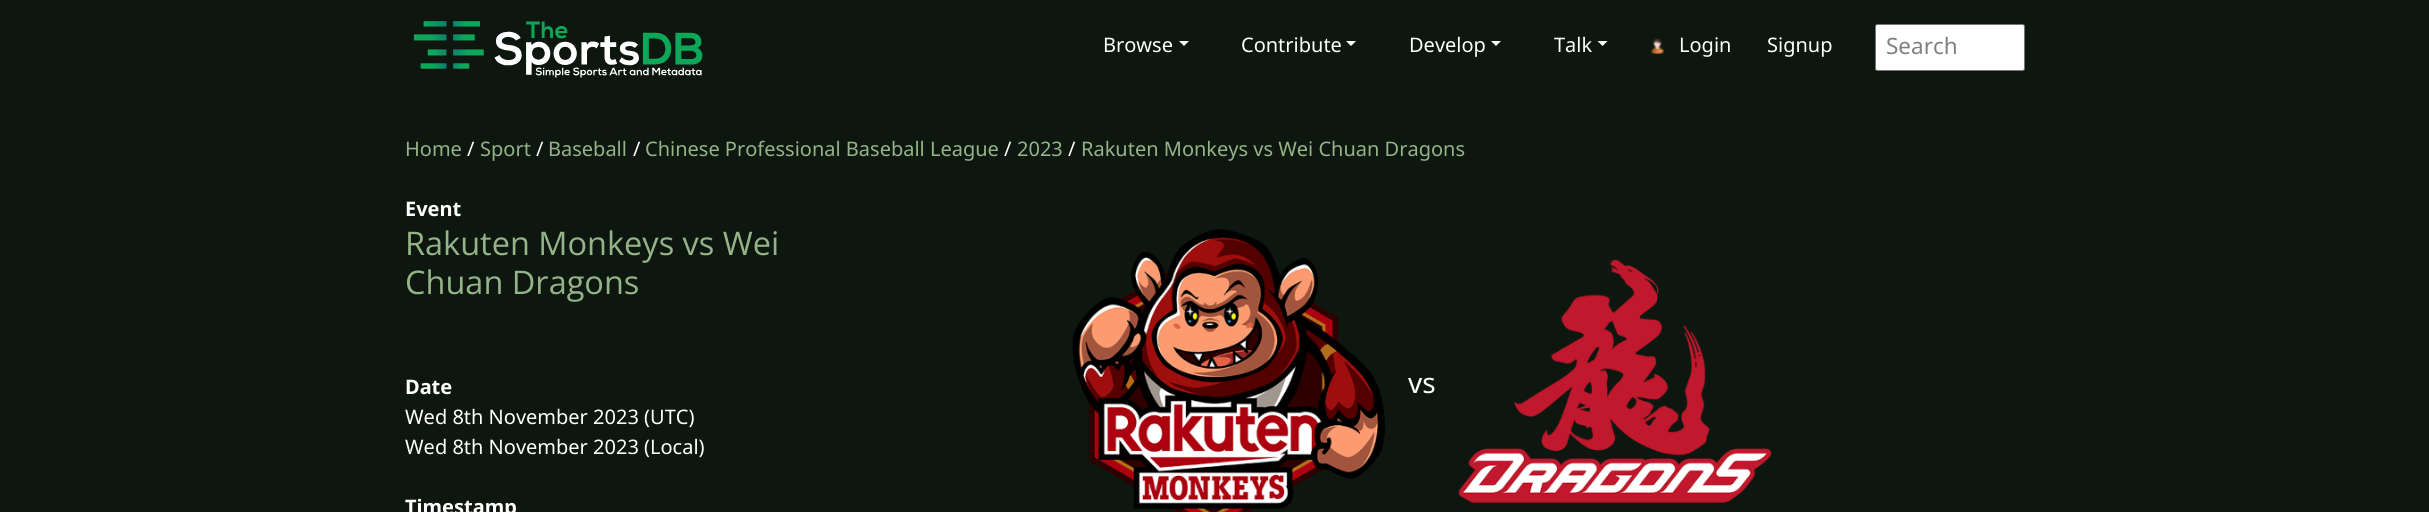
import math
import cairo


def round_path(ctx, x, y, w, h, r):
	ctx.new_sub_path()
	for i, (u, v) in enumerate([(x + w - r, y + h - r), (x + r, y + h - r), (x + r, y + r), (x + w - r, y + r)]):
		ctx.arc(u, v, r, i * math.pi / 2, (i + 1) * math.pi / 2)
	ctx.close_path()

def paste(ctx, path, x, y, w, h):
	ctx.save()
	ctx.set_source_surface(cairo.ImageSurface.create_from_png(path), x, y)
	ctx.rectangle(x, y, w, h)
	ctx.fill()
	ctx.restore()

def draw(ctx):
	ctx.set_source_rgb(0.051, 0.09, 0.059)
	ctx.paint()
	paste(ctx, 'media/1.png', 413, 21, 290, 57)
	ctx.select_font_face('Noto Sans')
	ctx.set_font_size(20)
	ctx.set_source_rgb(1, 1, 1)
	ctx.move_to(1103, 52)
	ctx.show_text('Browse')
	ctx.new_path()
	ctx.move_to(1179, 41)
	ctx.line_to(1189, 41)
	ctx.line_to(1184, 46)
	ctx.close_path()
	ctx.fill()
	ctx.move_to(1241, 52)
	ctx.show_text('Contribute')
	ctx.new_path()
	ctx.move_to(1346, 41)
	ctx.line_to(1356, 41)
	ctx.line_to(1351, 46)
	ctx.close_path()
	ctx.fill()
	ctx.move_to(1409, 52)
	ctx.show_text('Develop')
	ctx.new_path()
	ctx.move_to(1491, 41)
	ctx.line_to(1501, 41)
	ctx.line_to(1496, 46)
	ctx.close_path()
	ctx.fill()
	ctx.move_to(1554, 52)
	ctx.show_text('Talk')
	ctx.new_path()
	ctx.move_to(1597.5, 41)
	ctx.line_to(1607.5, 41)
	ctx.line_to(1602.5, 46)
	ctx.close_path()
	ctx.fill()
	paste(ctx, 'media/2.png', 1650, 38, 15, 16)
	ctx.move_to(1679, 52)
	ctx.show_text('Login')
	ctx.move_to(1767, 52)
	ctx.show_text('Signup')
	round_path(ctx, 1875.5, 24.5, 149, 46, 2)
	ctx.fill_preserve()
	ctx.set_source_rgb(0.463, 0.463, 0.463)
	ctx.set_line_width(1)
	ctx.stroke()
	ctx.set_font_size(22.5)
	ctx.set_source_rgb(0.502, 0.502, 0.502)
	ctx.move_to(1886, 54)
	ctx.show_text('Search')
	ctx.set_font_size(20)
	ctx.set_source_rgb(0.58, 0.702, 0.529)
	ctx.move_to(405, 156)
	ctx.show_text('Home')
	ctx.set_source_rgb(1, 1, 1)
	ctx.move_to(467, 156)
	ctx.show_text('/')
	ctx.set_source_rgb(0.58, 0.702, 0.529)
	ctx.move_to(480, 156)
	ctx.show_text('Sport')
	ctx.set_source_rgb(1, 1, 1)
	ctx.move_to(536, 156)
	ctx.show_text('/')
	ctx.set_source_rgb(0.58, 0.702, 0.529)
	ctx.move_to(548, 156)
	ctx.show_text('Baseball')
	ctx.set_source_rgb(1, 1, 1)
	ctx.move_to(633, 156)
	ctx.show_text('/')
	ctx.set_source_rgb(0.58, 0.702, 0.529)
	ctx.move_to(645, 156)
	ctx.show_text('Chinese Professional Baseball League')
	ctx.set_source_rgb(1, 1, 1)
	ctx.move_to(1004, 156)
	ctx.show_text('/')
	ctx.set_source_rgb(0.58, 0.702, 0.529)
	ctx.move_to(1017, 156)
	ctx.show_text('2023')
	ctx.set_source_rgb(1, 1, 1)
	ctx.move_to(1068, 156)
	ctx.show_text('/')
	ctx.set_source_rgb(0.58, 0.702, 0.529)
	ctx.move_to(1081, 156)
	ctx.show_text('Rakuten Monkeys vs Wei Chuan Dragons')
	ctx.select_font_face('Noto Sans', cairo.FONT_SLANT_NORMAL, cairo.FONT_WEIGHT_BOLD)
	ctx.set_source_rgb(1, 1, 1)
	ctx.move_to(405, 216)
	ctx.show_text('Event')
	ctx.select_font_face('Open Sans')
	ctx.set_font_size(32.5)
	ctx.set_source_rgb(0.58, 0.702, 0.529)
	ctx.move_to(405, 255)
	ctx.show_text('Rakuten Monkeys vs Wei')
	ctx.move_to(405, 294)
	ctx.show_text('Chuan Dragons')
	ctx.select_font_face('Noto Sans', cairo.FONT_SLANT_NORMAL, cairo.FONT_WEIGHT_BOLD)
	ctx.set_font_size(20)
	ctx.set_source_rgb(1, 1, 1)
	ctx.move_to(405, 394)
	ctx.show_text('Date')
	ctx.select_font_face('Noto Sans')
	ctx.move_to(405, 424)
	ctx.show_text('Wed 8th November 2023 (UTC)')
	ctx.move_to(405, 454)
	ctx.show_text('Wed 8th November 2023 (Local)')
	ctx.select_font_face('Noto Sans', cairo.FONT_SLANT_NORMAL, cairo.FONT_WEIGHT_BOLD)
	ctx.move_to(405, 514)
	ctx.show_text('Timestamp')
	paste(ctx, 'media/3.png', 1072, 229, 313, 283)
	ctx.select_font_face('Noto Sans')
	ctx.set_font_size(28)
	ctx.move_to(1408, 393)
	ctx.show_text('vs')
	paste(ctx, 'media/4.png', 1458, 259, 314, 244)


surface = cairo.ImageSurface(cairo.FORMAT_RGB24, 2429, 512)
ctx = cairo.Context(surface)
options = cairo.FontOptions()
options.set_hint_metrics(cairo.HINT_METRICS_OFF)
options.set_hint_style(cairo.HINT_STYLE_NONE)
ctx.set_font_options(options)
ctx.set_miter_limit(4)
draw(ctx)
surface.write_to_png('image.png')
